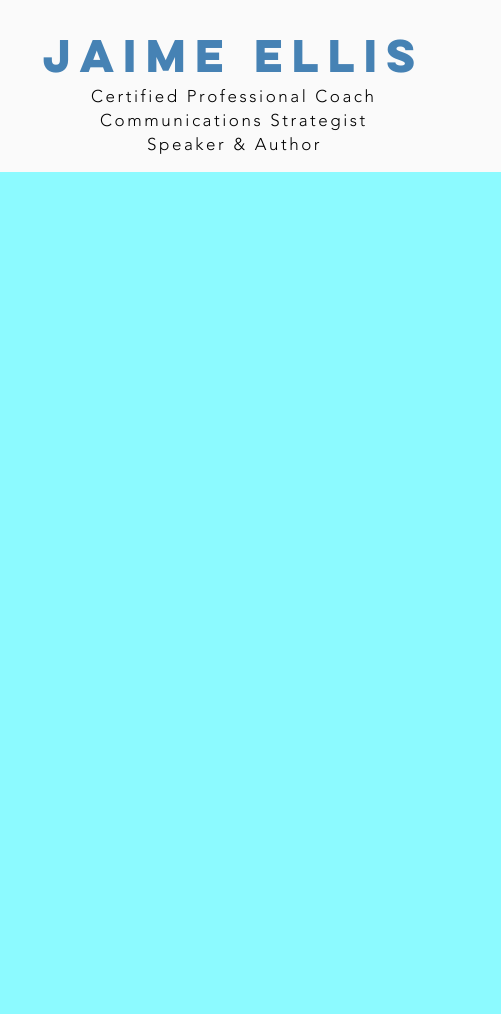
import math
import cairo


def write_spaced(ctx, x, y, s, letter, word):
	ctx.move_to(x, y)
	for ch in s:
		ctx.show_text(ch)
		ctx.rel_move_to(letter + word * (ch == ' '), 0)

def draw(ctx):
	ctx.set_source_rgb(0.549, 0.98, 1)
	ctx.paint()
	ctx.set_source_rgb(0.98, 0.98, 0.98)
	ctx.rectangle(0, 0, 501, 172)
	ctx.fill()
	ctx.select_font_face('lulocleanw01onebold', cairo.FONT_SLANT_NORMAL, cairo.FONT_WEIGHT_BOLD)
	ctx.set_font_size(41)
	ctx.set_source_rgb(0.275, 0.51, 0.706)
	ctx.move_to(43, 72)
	ctx.show_text('Jaime ellis')
	ctx.select_font_face('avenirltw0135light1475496 Light')
	ctx.set_font_size(17)
	ctx.set_source_rgb(0, 0, 0)
	for x, y, s in [
		(91, 102, 'Certified Professional Coach'),
		(100, 126, 'Communications Strategist'),
		(147, 150, 'Speaker & Author'),
	]:
		write_spaced(ctx, x, y, s, 2.55, 0)


surface = cairo.ImageSurface(cairo.FORMAT_RGB24, 501, 1014)
ctx = cairo.Context(surface)
options = cairo.FontOptions()
options.set_hint_metrics(cairo.HINT_METRICS_OFF)
options.set_hint_style(cairo.HINT_STYLE_NONE)
ctx.set_font_options(options)
ctx.set_miter_limit(4)
draw(ctx)
surface.write_to_png('image.png')
